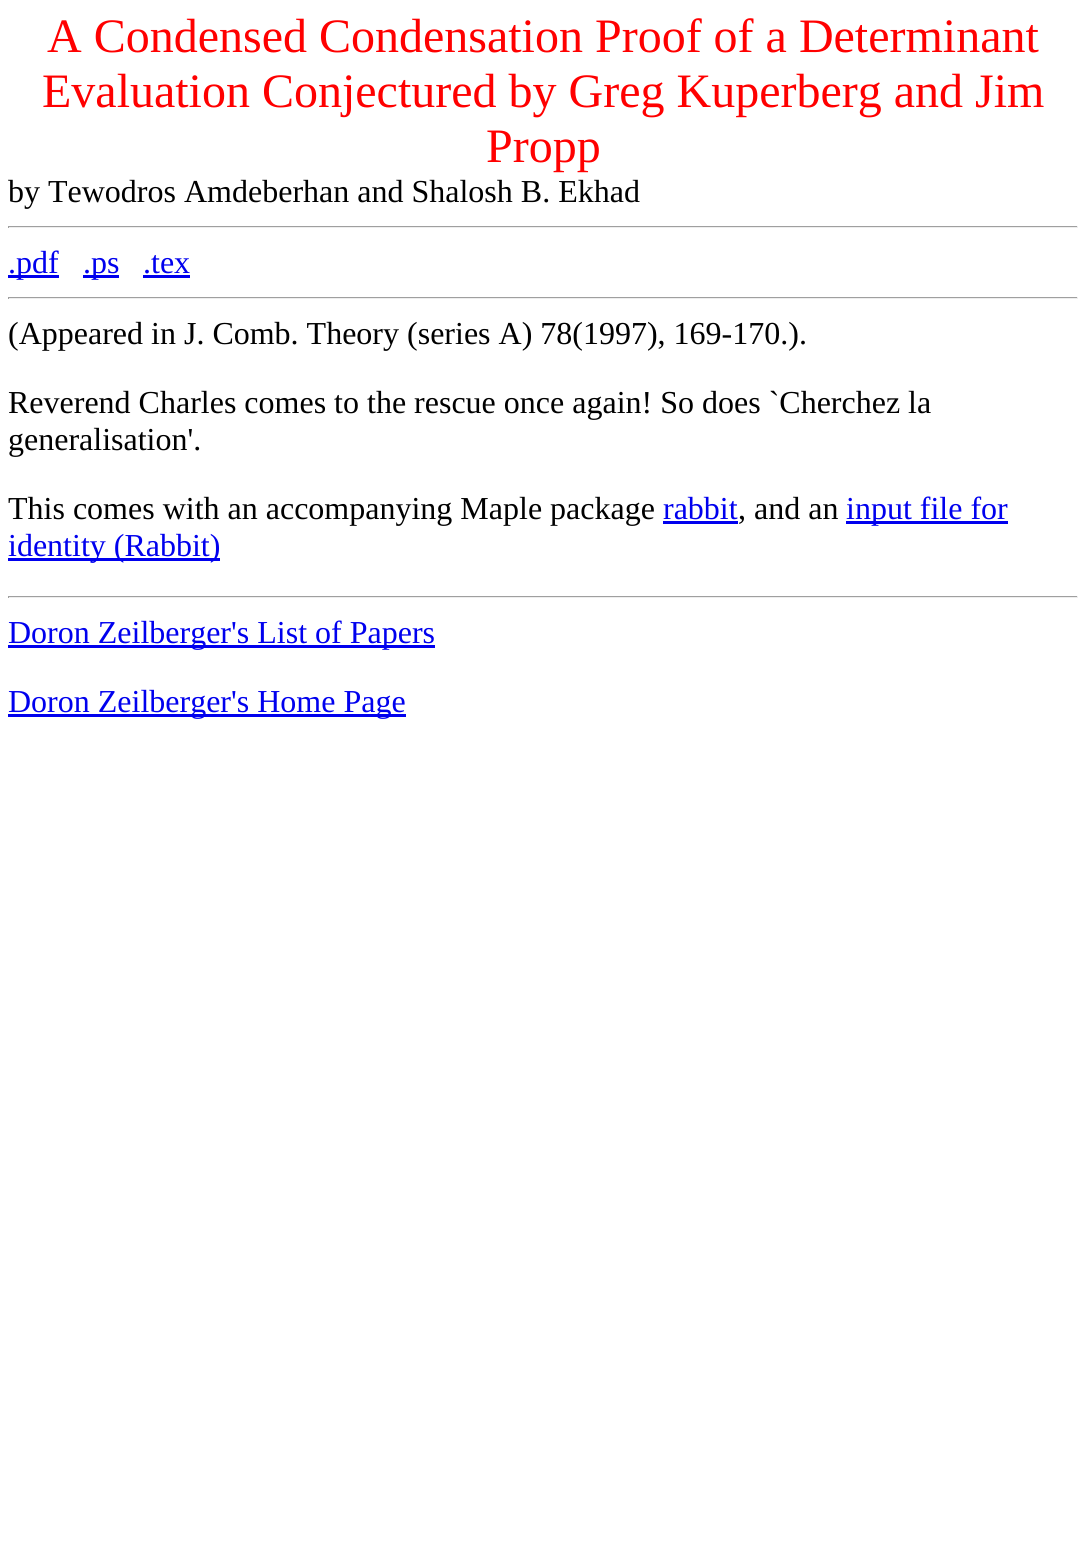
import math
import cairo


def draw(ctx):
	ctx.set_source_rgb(1, 1, 1)
	ctx.paint()
	ctx.select_font_face('Liberation Serif')
	ctx.set_font_size(48)
	ctx.set_source_rgb(1, 0, 0)
	for x, y, s in [
		(47, 52, 'A Condensed Condensation Proof of a Determinant'),
		(42, 107, 'Evaluation Conjectured by Greg Kuperberg and Jim'),
		(486, 162, 'Propp'),
	]:
		ctx.move_to(x, y)
		ctx.show_text(s)
	ctx.set_font_size(32)
	ctx.set_source_rgb(0, 0, 0)
	ctx.move_to(8, 202)
	ctx.show_text('by Tewodros Amdeberhan and Shalosh B. Ekhad')
	ctx.set_source_rgb(0.624, 0.624, 0.624)
	ctx.rectangle(8, 226, 1070, 1)
	ctx.fill()
	ctx.set_source_rgb(0.933, 0.933, 0.933)
	ctx.rectangle(1077, 226, 1, 2)
	ctx.rectangle(8, 227, 1070, 1)
	ctx.fill()
	ctx.set_source_rgb(0.624, 0.624, 0.624)
	ctx.rectangle(8, 226, 1, 2)
	ctx.fill()
	ctx.set_source_rgb(0, 0, 0.933)
	ctx.rectangle(8, 275, 51, 3)
	ctx.fill()
	ctx.move_to(8, 273)
	ctx.show_text('.pdf')
	ctx.rectangle(83, 275, 36, 3)
	ctx.fill()
	ctx.move_to(83, 273)
	ctx.show_text('.ps')
	ctx.move_to(143, 273)
	ctx.show_text('.tex')
	ctx.rectangle(143, 275, 47, 3)
	ctx.fill()
	ctx.set_source_rgb(0.624, 0.624, 0.624)
	ctx.rectangle(8, 297, 1070, 1)
	ctx.fill()
	ctx.set_source_rgb(0.933, 0.933, 0.933)
	ctx.rectangle(1077, 297, 1, 2)
	ctx.rectangle(8, 298, 1070, 1)
	ctx.fill()
	ctx.set_source_rgb(0.624, 0.624, 0.624)
	ctx.rectangle(8, 297, 1, 2)
	ctx.fill()
	ctx.set_source_rgb(0, 0, 0)
	for x, y, s in [
		(8, 344, '(Appeared in J. Comb. Theory (series A) 78(1997), 169-170.).'),
		(8, 413, 'Reverend Charles comes to the rescue once again! So does `Cherchez la'),
		(8, 450, 'generalisation\'.'),
		(8, 519, 'This comes with an accompanying Maple package'),
	]:
		ctx.move_to(x, y)
		ctx.show_text(s)
	ctx.set_source_rgb(0, 0, 0.933)
	ctx.move_to(663, 519)
	ctx.show_text('rabbit')
	ctx.rectangle(663, 521, 75, 3)
	ctx.fill()
	ctx.set_source_rgb(0, 0, 0)
	ctx.move_to(738, 519)
	ctx.show_text(', and an')
	ctx.set_source_rgb(0, 0, 0.933)
	ctx.rectangle(846, 521, 162, 3)
	ctx.fill()
	ctx.move_to(846, 519)
	ctx.show_text('input file for')
	ctx.rectangle(8, 558, 212, 3)
	ctx.fill()
	ctx.move_to(8, 556)
	ctx.show_text('identity (Rabbit)')
	ctx.set_source_rgb(0.624, 0.624, 0.624)
	ctx.rectangle(8, 596, 1070, 1)
	ctx.fill()
	ctx.set_source_rgb(0.933, 0.933, 0.933)
	ctx.rectangle(1077, 596, 1, 2)
	ctx.rectangle(8, 597, 1070, 1)
	ctx.fill()
	ctx.set_source_rgb(0.624, 0.624, 0.624)
	ctx.rectangle(8, 596, 1, 2)
	ctx.fill()
	ctx.set_source_rgb(0, 0, 0.933)
	ctx.rectangle(8, 645, 427, 3)
	ctx.fill()
	ctx.move_to(8, 643)
	ctx.show_text('Doron Zeilberger\'s List of Papers')
	ctx.rectangle(8, 714, 398, 3)
	ctx.fill()
	ctx.move_to(8, 712)
	ctx.show_text('Doron Zeilberger\'s Home Page')


surface = cairo.ImageSurface(cairo.FORMAT_RGB24, 1086, 1557)
ctx = cairo.Context(surface)
options = cairo.FontOptions()
options.set_hint_metrics(cairo.HINT_METRICS_OFF)
options.set_hint_style(cairo.HINT_STYLE_NONE)
ctx.set_font_options(options)
ctx.set_miter_limit(4)
draw(ctx)
surface.write_to_png('image.png')
